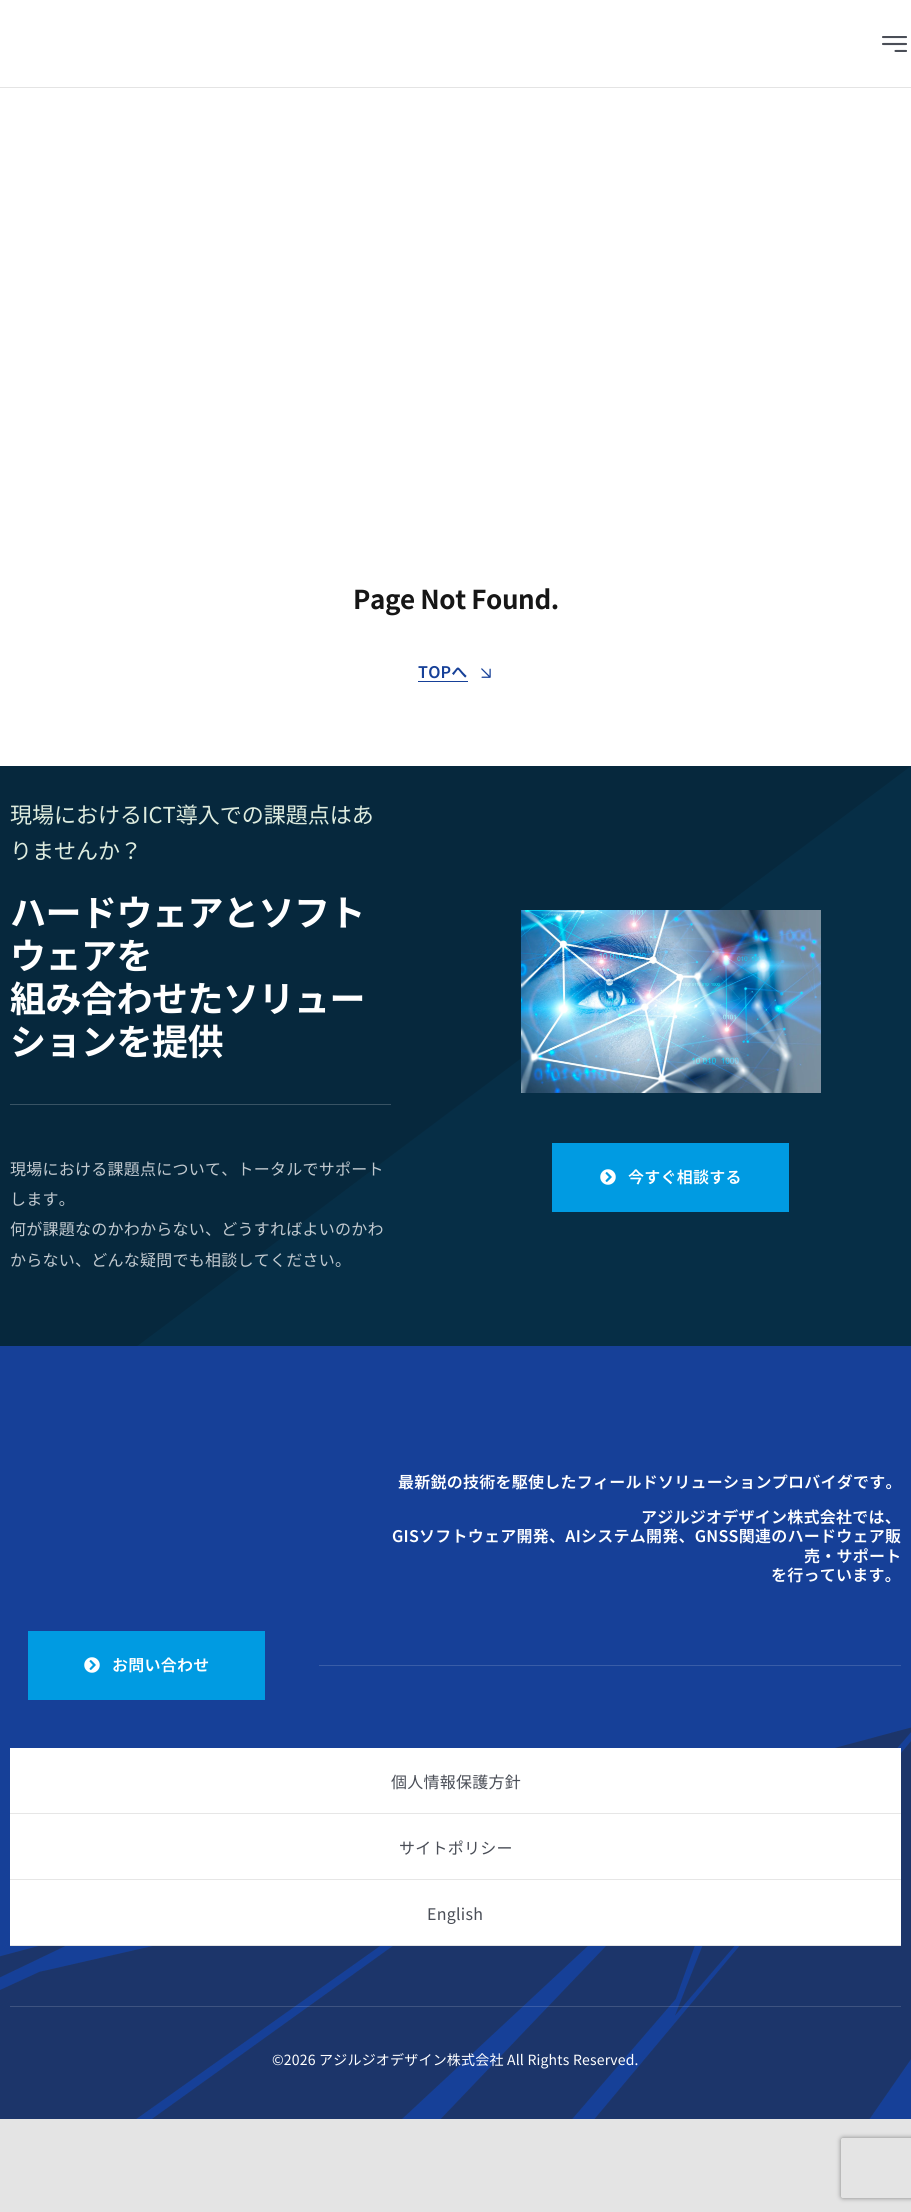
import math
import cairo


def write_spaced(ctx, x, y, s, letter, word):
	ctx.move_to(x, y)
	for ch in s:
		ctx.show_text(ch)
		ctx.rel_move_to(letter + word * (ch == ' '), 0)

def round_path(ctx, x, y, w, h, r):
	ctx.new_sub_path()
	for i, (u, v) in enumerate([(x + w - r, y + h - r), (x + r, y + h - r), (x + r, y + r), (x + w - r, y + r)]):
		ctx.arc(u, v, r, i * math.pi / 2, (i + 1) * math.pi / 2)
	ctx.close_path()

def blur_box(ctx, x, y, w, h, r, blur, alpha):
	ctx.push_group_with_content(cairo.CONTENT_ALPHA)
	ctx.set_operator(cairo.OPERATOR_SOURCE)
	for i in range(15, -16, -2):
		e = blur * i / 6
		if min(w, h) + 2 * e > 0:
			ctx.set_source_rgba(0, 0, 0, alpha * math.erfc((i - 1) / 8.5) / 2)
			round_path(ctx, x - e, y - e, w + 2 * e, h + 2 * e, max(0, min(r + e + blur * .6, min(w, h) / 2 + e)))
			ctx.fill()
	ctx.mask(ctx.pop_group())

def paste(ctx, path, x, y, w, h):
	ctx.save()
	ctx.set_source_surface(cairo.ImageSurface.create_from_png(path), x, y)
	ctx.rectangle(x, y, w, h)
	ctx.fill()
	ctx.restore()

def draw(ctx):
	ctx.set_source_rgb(0.894, 0.894, 0.894)
	ctx.paint()
	ctx.set_source_rgb(1, 1, 1)
	ctx.rectangle(0, 0, 911, 766)
	ctx.fill()
	ctx.set_source_rgb(0.894, 0.894, 0.894)
	ctx.rectangle(0, 87, 911, 1)
	ctx.fill()
	paste(ctx, 'media/1.png', 882, 36, 25, 16)
	ctx.select_font_face('Noto Sans JP', cairo.FONT_SLANT_NORMAL, cairo.FONT_WEIGHT_BOLD)
	ctx.set_font_size(26)
	ctx.set_source_rgb(0.086, 0.086, 0.086)
	write_spaced(ctx, 353, 609, 'Page Not Found.', -0.4, 0)
	ctx.select_font_face('Noto Sans JP SemiBold')
	ctx.set_font_size(16)
	ctx.set_source_rgb(0.086, 0.251, 0.596)
	write_spaced(ctx, 418, 678, 'TOPへ', 0.25, 0)
	ctx.rectangle(418, 681, 50, 1)
	ctx.fill()
	paste(ctx, 'media/2.png', 481, 668, 10, 10)
	ctx.set_source_rgb(0.024, 0.157, 0.239)
	ctx.rectangle(0, 766, 911, 580)
	ctx.fill()
	ctx.save()
	ctx.rectangle(0, 766, 911, 580)
	ctx.clip()
	ctx.set_source_rgb(0.027, 0.18, 0.275)
	ctx.new_path()
	ctx.move_to(911, 766)
	ctx.line_to(0, 1449)
	ctx.line_to(0, 2132)
	ctx.line_to(911, 1449)
	ctx.line_to(911, 2132)
	ctx.line_to(0, 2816)
	ctx.line_to(0, 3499)
	ctx.line_to(911, 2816)
	ctx.line_to(911, 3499)
	ctx.line_to(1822, 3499)
	ctx.line_to(911, 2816)
	ctx.line_to(911, 2132)
	ctx.line_to(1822, 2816)
	ctx.line_to(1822, 2132)
	ctx.line_to(911, 1449)
	ctx.line_to(911, 766)
	ctx.line_to(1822, 1449)
	ctx.line_to(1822, 766)
	ctx.close_path()
	ctx.fill()
	ctx.restore()
	ctx.select_font_face('Noto Sans JP')
	ctx.set_font_size(22)
	ctx.set_source_rgb(0.871, 0.925, 0.875)
	ctx.move_to(10, 823)
	ctx.show_text('現場におけるICT導入での課題点はあ')
	ctx.move_to(10, 859)
	ctx.show_text('りませんか？')
	ctx.select_font_face('Noto Sans JP', cairo.FONT_SLANT_NORMAL, cairo.FONT_WEIGHT_BOLD)
	ctx.set_font_size(36)
	ctx.set_source_rgb(1, 1, 1)
	for x, y, s in [
		(10, 926, 'ハードウェアとソフト'),
		(10, 969, 'ウェアを'),
		(10, 1012, '組み合わせたソリュー'),
		(10, 1055, 'ションを提供'),
	]:
		write_spaced(ctx, x, y, s, -0.5, 0)
	ctx.set_source_rgb(0.22, 0.325, 0.392)
	ctx.rectangle(10, 1104, 381, 1)
	ctx.fill()
	ctx.select_font_face('Noto Sans JP')
	ctx.set_font_size(16)
	ctx.set_source_rgb(0.757, 0.788, 0.812)
	for x, y, s in [
		(10, 1175, '現場における課題点について、トータルでサポート'),
		(10, 1205, 'します。'),
		(10, 1235, '何が課題なのかわからない、どうすればよいのかわ'),
		(10, 1266, 'からない、どんな疑問でも相談してください。'),
	]:
		write_spaced(ctx, x, y, s, 0.25, 0)
	paste(ctx, 'media/3.png', 521, 910, 300, 183)
	ctx.set_source_rgb(0, 0.608, 0.886)
	ctx.rectangle(552, 1143, 237, 69)
	ctx.fill()
	paste(ctx, 'media/4.png', 600, 1169, 16, 16)
	ctx.select_font_face('Noto Sans JP SemiBold')
	ctx.set_source_rgb(1, 1, 1)
	write_spaced(ctx, 628, 1183, '今すぐ相談する', 0.25, 0)
	ctx.set_source_rgb(0.086, 0.251, 0.596)
	ctx.rectangle(0, 1346, 911, 773)
	ctx.fill()
	ctx.set_source_rgb(1, 1, 1)
	for x, y, s in [
		(398, 1488, '最新鋭の技術を駆使したフィールドソリューションプロバイダです。'),
		(641, 1523, 'アジルジオデザイン株式会社では、'),
		(392, 1542, 'GISソフトウェア開発、AIシステム開発、GNSS関連のハードウェア販'),
		(804, 1562, '売・サポート'),
		(771, 1581, 'を行っています。'),
	]:
		write_spaced(ctx, x, y, s, 0.25, 0)
	ctx.set_source_rgb(0, 0.608, 0.886)
	ctx.rectangle(28, 1631, 237, 69)
	ctx.fill()
	paste(ctx, 'media/4.png', 84, 1657, 16, 16)
	ctx.set_source_rgb(1, 1, 1)
	write_spaced(ctx, 112, 1671, 'お問い合わせ', 0.25, 0)
	ctx.set_source_rgb(0.224, 0.365, 0.655)
	ctx.rectangle(319, 1665, 582, 1)
	ctx.fill()
	paste(ctx, 'media/5.png', 0, 1727, 911, 392)
	ctx.set_source_rgb(1, 1, 1)
	ctx.rectangle(10, 1748, 891, 197)
	ctx.fill()
	ctx.set_source_rgb(0.902, 0.902, 0.902)
	ctx.rectangle(10, 1813, 891, 1)
	ctx.fill()
	ctx.select_font_face('Noto Sans JP')
	ctx.set_source_rgb(0.29, 0.306, 0.341)
	write_spaced(ctx, 391, 1788, '個人情報保護方針', 0.25, 0)
	ctx.set_source_rgb(0.902, 0.902, 0.902)
	ctx.rectangle(10, 1879, 891, 1)
	ctx.fill()
	ctx.set_source_rgb(0.29, 0.306, 0.341)
	write_spaced(ctx, 399, 1854, 'サイトポリシー', 0.25, 0)
	ctx.set_source_rgb(0.902, 0.902, 0.902)
	ctx.rectangle(10, 1945, 891, 1)
	ctx.fill()
	ctx.set_source_rgb(0.29, 0.306, 0.341)
	write_spaced(ctx, 427, 1920, 'English', 0.25, 0)
	ctx.set_source_rgba(1, 1, 1, 0.15)
	ctx.rectangle(10, 2006, 891, 1)
	ctx.fill()
	ctx.set_font_size(14)
	ctx.set_source_rgb(1, 1, 1)
	write_spaced(ctx, 272, 2065, '©2026 アジルジオデザイン株式会社 All Rights Reserved.', 0.2, 0)
	ctx.save()
	ctx.set_fill_rule(cairo.FILL_RULE_EVEN_ODD)
	ctx.new_path()
	ctx.move_to(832, 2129)
	ctx.line_to(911, 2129)
	ctx.line_to(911, 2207)
	ctx.line_to(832, 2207)
	ctx.close_path()
	ctx.move_to(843, 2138)
	ctx.line_to(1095, 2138)
	ctx.curve_to(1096, 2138, 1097, 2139, 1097, 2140)
	ctx.line_to(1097, 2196)
	ctx.curve_to(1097, 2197, 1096, 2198, 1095, 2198)
	ctx.line_to(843, 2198)
	ctx.curve_to(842, 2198, 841, 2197, 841, 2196)
	ctx.line_to(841, 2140)
	ctx.curve_to(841, 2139, 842, 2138, 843, 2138)
	ctx.close_path()
	ctx.clip()
	ctx.set_source_rgb(0.502, 0.502, 0.502)
	blur_box(ctx, 841, 2138, 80, 60, 2, 2.5, 1)
	ctx.restore()


surface = cairo.ImageSurface(cairo.FORMAT_RGB24, 911, 2212)
ctx = cairo.Context(surface)
options = cairo.FontOptions()
options.set_hint_metrics(cairo.HINT_METRICS_OFF)
options.set_hint_style(cairo.HINT_STYLE_NONE)
ctx.set_font_options(options)
ctx.set_miter_limit(4)
draw(ctx)
surface.write_to_png('image.png')
